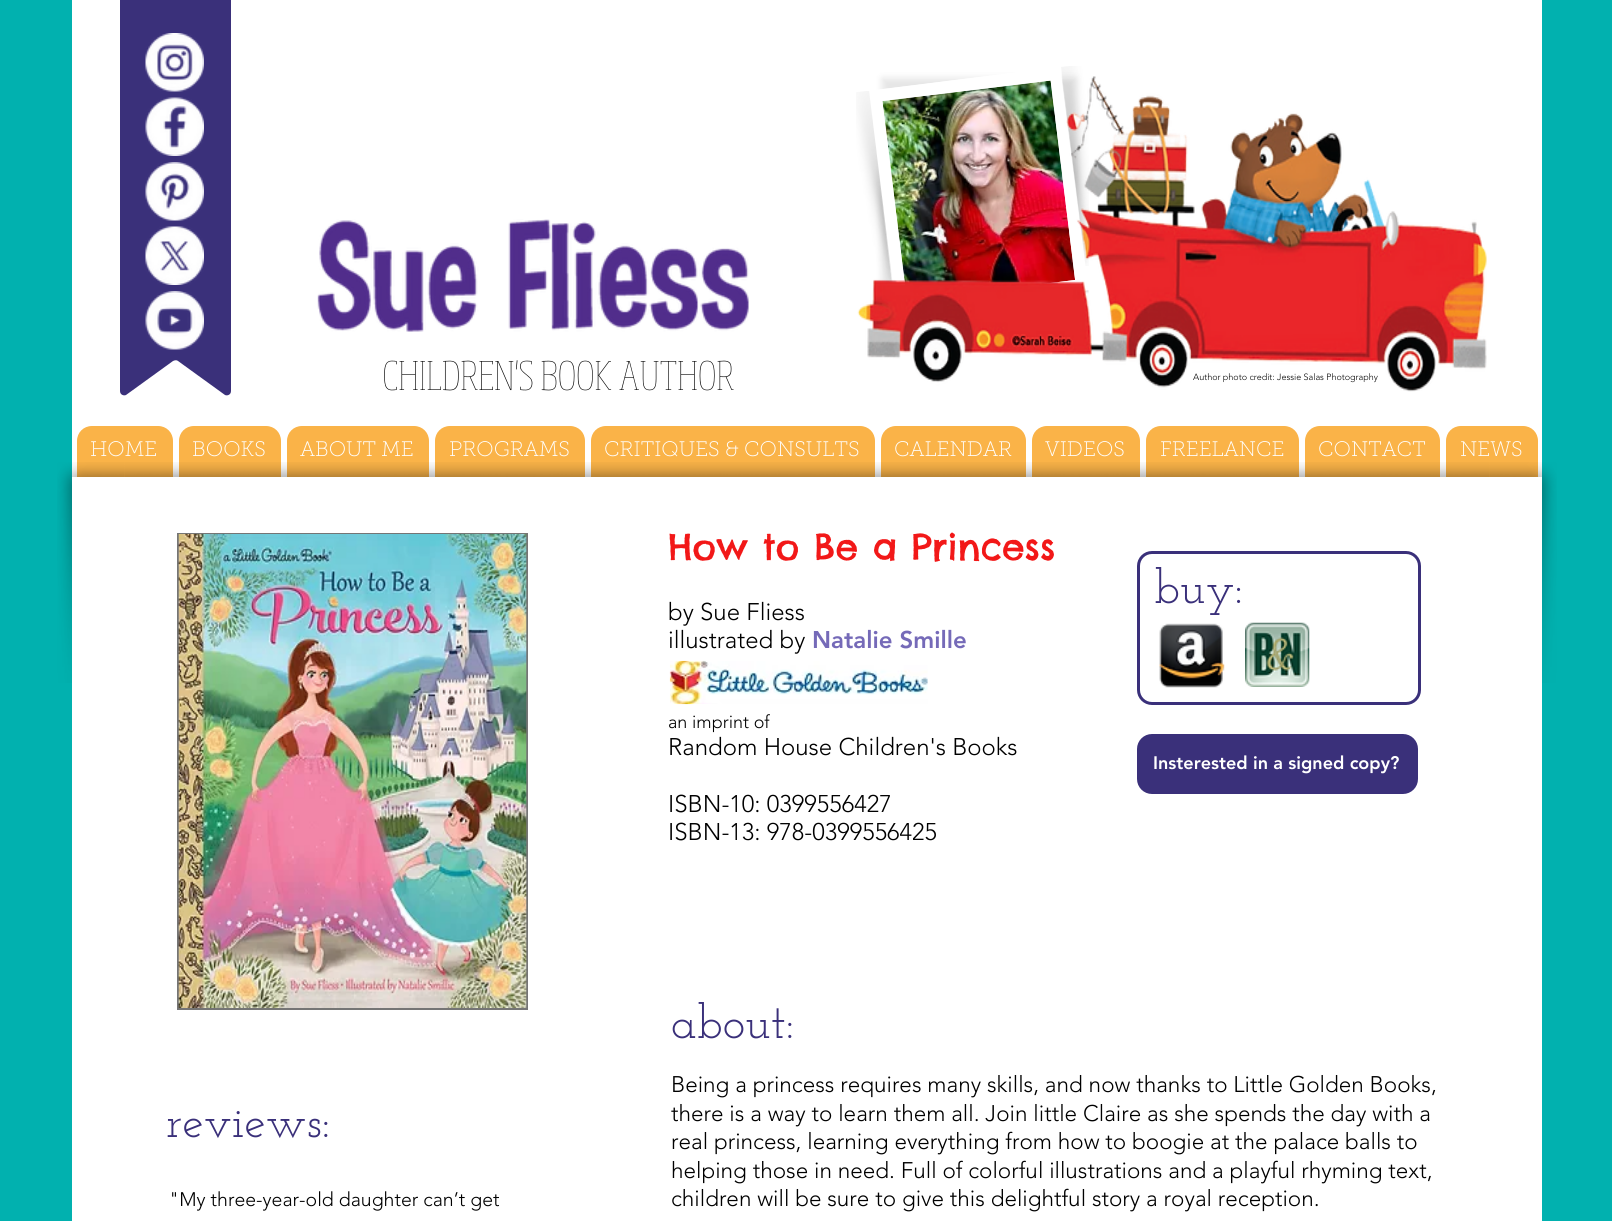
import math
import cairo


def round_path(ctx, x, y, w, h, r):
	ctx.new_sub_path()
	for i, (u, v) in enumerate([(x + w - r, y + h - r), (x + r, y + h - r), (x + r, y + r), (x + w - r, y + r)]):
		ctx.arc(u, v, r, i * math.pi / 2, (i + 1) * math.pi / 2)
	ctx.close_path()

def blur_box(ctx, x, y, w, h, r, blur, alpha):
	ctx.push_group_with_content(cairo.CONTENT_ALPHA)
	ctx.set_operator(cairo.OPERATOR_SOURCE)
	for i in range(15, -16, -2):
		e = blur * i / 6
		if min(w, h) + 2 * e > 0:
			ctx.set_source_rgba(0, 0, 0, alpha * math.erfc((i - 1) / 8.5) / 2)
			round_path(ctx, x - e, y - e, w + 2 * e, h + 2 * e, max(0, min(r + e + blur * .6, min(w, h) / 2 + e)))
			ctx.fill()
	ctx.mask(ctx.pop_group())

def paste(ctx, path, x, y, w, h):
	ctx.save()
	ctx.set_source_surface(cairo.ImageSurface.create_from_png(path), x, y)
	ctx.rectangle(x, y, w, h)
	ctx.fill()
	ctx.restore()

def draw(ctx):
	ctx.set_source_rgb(0.004, 0.694, 0.686)
	ctx.paint()
	ctx.set_source_rgb(1, 1, 1)
	ctx.rectangle(72, 0, 1470, 477)
	ctx.fill()
	ctx.set_source_rgb(0.227, 0.188, 0.478)
	ctx.new_path()
	ctx.move_to(126, -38)
	ctx.curve_to(124, -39, 120, -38, 120, -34)
	ctx.line_to(120, 391)
	ctx.curve_to(120, 395, 124, 396, 126, 395)
	ctx.line_to(173, 361)
	ctx.curve_to(175, 360, 177, 360, 178, 361)
	ctx.line_to(225, 395)
	ctx.curve_to(227, 396, 231, 395, 231, 391)
	ctx.line_to(231, -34)
	ctx.curve_to(231, -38, 227, -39, 225, -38)
	ctx.line_to(178, -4)
	ctx.curve_to(176, -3, 174, -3, 173, -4)
	ctx.close_path()
	ctx.fill()
	paste(ctx, 'media/1.png', 145, 33, 59, 59)
	paste(ctx, 'media/2.png', 145, 97, 59, 59)
	paste(ctx, 'media/3.png', 145, 162, 59, 59)
	paste(ctx, 'media/4.png', 145, 226, 59, 59)
	paste(ctx, 'media/5.png', 145, 291, 59, 59)
	ctx.set_source_rgb(0, 0, 0)
	blur_box(ctx, 882, 78, 194, 225, 0, 3.5, 0.1)
	ctx.set_source_rgb(1, 1, 1)
	ctx.new_path()
	ctx.move_to(868, 91)
	ctx.line_to(1060, 67)
	ctx.line_to(1088, 290)
	ctx.line_to(896, 314)
	ctx.close_path()
	ctx.fill()
	ctx.new_path()
	ctx.move_to(875, 96)
	ctx.line_to(1055, 73.5)
	ctx.line_to(1081, 285)
	ctx.line_to(901, 307.5)
	ctx.close_path()
	ctx.set_line_width(12)
	ctx.stroke()
	paste(ctx, 'media/6.png', 882, 80, 193, 206)
	paste(ctx, 'media/7.png', 1082, 290, 7, 4)
	paste(ctx, 'media/8.png', 856, 91, 37, 194)
	paste(ctx, 'media/9.png', 1061, 66, 28, 200)
	paste(ctx, 'media/10.png', 317, 219, 432, 113)
	ctx.select_font_face('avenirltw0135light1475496 Light')
	ctx.set_font_size(9)
	ctx.set_source_rgb(0, 0, 0)
	ctx.move_to(1193, 380)
	ctx.show_text('Author photo credit: Jessie Salas Photography')
	paste(ctx, 'media/11.png', 857, 76, 630, 316)
	paste(ctx, 'media/12.png', 384, 360, 350, 31)
	ctx.set_source_rgb(0.98, 0.702, 0.282)
	ctx.new_path()
	ctx.move_to(92, 426)
	ctx.line_to(158, 426)
	ctx.curve_to(166.5, 426, 173, 432.5, 173, 441)
	ctx.line_to(173, 477)
	ctx.line_to(77, 477)
	ctx.line_to(77, 441)
	ctx.curve_to(77, 432.5, 83.5, 426, 92, 426)
	ctx.close_path()
	ctx.fill()
	ctx.select_font_face('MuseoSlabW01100 Thin')
	ctx.set_font_size(21)
	ctx.set_source_rgb(1, 1, 1)
	ctx.move_to(90, 456)
	ctx.show_text('HOME')
	ctx.set_source_rgb(0.98, 0.702, 0.282)
	ctx.new_path()
	ctx.move_to(194, 426)
	ctx.line_to(266, 426)
	ctx.curve_to(274.5, 426, 281, 432.5, 281, 441)
	ctx.line_to(281, 477)
	ctx.line_to(179, 477)
	ctx.line_to(179, 441)
	ctx.curve_to(179, 432.5, 185.5, 426, 194, 426)
	ctx.close_path()
	ctx.fill()
	ctx.set_source_rgb(1, 1, 1)
	ctx.move_to(192, 456)
	ctx.show_text('BOOKS')
	ctx.set_source_rgb(0.98, 0.702, 0.282)
	ctx.new_path()
	ctx.move_to(302, 426)
	ctx.line_to(414, 426)
	ctx.curve_to(422.5, 426, 429, 432.5, 429, 441)
	ctx.line_to(429, 477)
	ctx.line_to(287, 477)
	ctx.line_to(287, 441)
	ctx.curve_to(287, 432.5, 293.5, 426, 302, 426)
	ctx.close_path()
	ctx.fill()
	ctx.set_source_rgb(1, 1, 1)
	ctx.move_to(300, 456)
	ctx.show_text('ABOUT ME')
	ctx.set_source_rgb(0.98, 0.702, 0.282)
	ctx.new_path()
	ctx.move_to(450, 426)
	ctx.line_to(570, 426)
	ctx.curve_to(578.5, 426, 585, 432.5, 585, 441)
	ctx.line_to(585, 477)
	ctx.line_to(435, 477)
	ctx.line_to(435, 441)
	ctx.curve_to(435, 432.5, 441.5, 426, 450, 426)
	ctx.close_path()
	ctx.fill()
	ctx.set_source_rgb(1, 1, 1)
	ctx.move_to(449, 456)
	ctx.show_text('PROGRAMS')
	ctx.set_source_rgb(0.98, 0.702, 0.282)
	ctx.new_path()
	ctx.move_to(606, 426)
	ctx.line_to(860, 426)
	ctx.curve_to(868.5, 426, 875, 432.5, 875, 441)
	ctx.line_to(875, 477)
	ctx.line_to(591, 477)
	ctx.line_to(591, 441)
	ctx.curve_to(591, 432.5, 597.5, 426, 606, 426)
	ctx.close_path()
	ctx.fill()
	ctx.set_source_rgb(1, 1, 1)
	ctx.move_to(604, 456)
	ctx.show_text('CRITIQUES & CONSULTS')
	ctx.set_source_rgb(0.98, 0.702, 0.282)
	ctx.new_path()
	ctx.move_to(896, 426)
	ctx.line_to(1011, 426)
	ctx.curve_to(1019.5, 426, 1026, 432.5, 1026, 441)
	ctx.line_to(1026, 477)
	ctx.line_to(881, 477)
	ctx.line_to(881, 441)
	ctx.curve_to(881, 432.5, 887.5, 426, 896, 426)
	ctx.close_path()
	ctx.fill()
	ctx.set_source_rgb(1, 1, 1)
	ctx.move_to(894, 456)
	ctx.show_text('CALENDAR')
	ctx.set_source_rgb(0.98, 0.702, 0.282)
	ctx.new_path()
	ctx.move_to(1047, 426)
	ctx.line_to(1125, 426)
	ctx.curve_to(1133.5, 426, 1140, 432.5, 1140, 441)
	ctx.line_to(1140, 477)
	ctx.line_to(1032, 477)
	ctx.line_to(1032, 441)
	ctx.curve_to(1032, 432.5, 1038.5, 426, 1047, 426)
	ctx.close_path()
	ctx.fill()
	ctx.set_source_rgb(1, 1, 1)
	ctx.move_to(1045, 456)
	ctx.show_text('VIDEOS')
	ctx.set_source_rgb(0.98, 0.702, 0.282)
	ctx.new_path()
	ctx.move_to(1161, 426)
	ctx.line_to(1284, 426)
	ctx.curve_to(1292.5, 426, 1299, 432.5, 1299, 441)
	ctx.line_to(1299, 477)
	ctx.line_to(1146, 477)
	ctx.line_to(1146, 441)
	ctx.curve_to(1146, 432.5, 1152.5, 426, 1161, 426)
	ctx.close_path()
	ctx.fill()
	ctx.set_source_rgb(1, 1, 1)
	ctx.move_to(1160, 456)
	ctx.show_text('FREELANCE')
	ctx.set_source_rgb(0.98, 0.702, 0.282)
	ctx.new_path()
	ctx.move_to(1320, 426)
	ctx.line_to(1425, 426)
	ctx.curve_to(1433.5, 426, 1440, 432.5, 1440, 441)
	ctx.line_to(1440, 477)
	ctx.line_to(1305, 477)
	ctx.line_to(1305, 441)
	ctx.curve_to(1305, 432.5, 1311.5, 426, 1320, 426)
	ctx.close_path()
	ctx.fill()
	ctx.set_source_rgb(1, 1, 1)
	ctx.move_to(1318, 456)
	ctx.show_text('CONTACT')
	ctx.set_source_rgb(0.98, 0.702, 0.282)
	ctx.new_path()
	ctx.move_to(1461, 426)
	ctx.line_to(1523, 426)
	ctx.curve_to(1531.5, 426, 1538, 432.5, 1538, 441)
	ctx.line_to(1538, 477)
	ctx.line_to(1446, 477)
	ctx.line_to(1446, 441)
	ctx.curve_to(1446, 432.5, 1452.5, 426, 1461, 426)
	ctx.close_path()
	ctx.fill()
	ctx.set_source_rgb(1, 1, 1)
	ctx.move_to(1460, 456)
	ctx.show_text('NEWS')
	paste(ctx, 'media/13.png', 57, 462, 68, 221)
	paste(ctx, 'media/14.png', 124, 462, 1366, 15)
	paste(ctx, 'media/15.png', 1489, 462, 68, 221)
	ctx.rectangle(72, 477, 1470, 744)
	ctx.fill()
	ctx.set_source_rgb(0.459, 0.459, 0.459)
	ctx.rectangle(177, 533, 351, 477)
	ctx.fill()
	paste(ctx, 'media/16.png', 178, 534, 349, 474)
	ctx.select_font_face('Chelsea Market')
	ctx.set_font_size(36)
	ctx.set_source_rgb(0.949, 0.094, 0.094)
	ctx.move_to(668, 560)
	ctx.show_text('How to Be a Princess')
	ctx.select_font_face('avenirltw0135light1475496 Light')
	ctx.set_font_size(24)
	ctx.set_source_rgb(0, 0, 0)
	ctx.move_to(668, 620)
	ctx.show_text('by Sue Fliess')
	ctx.move_to(668, 648)
	ctx.show_text('illustrated by')
	ctx.select_font_face('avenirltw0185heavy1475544 Black')
	ctx.set_source_rgb(0.459, 0.416, 0.722)
	ctx.move_to(812, 648)
	ctx.show_text('Natalie Smille')
	ctx.select_font_face('avenirltw0135light1475496 Light')
	ctx.set_font_size(18)
	ctx.set_source_rgb(0, 0, 0)
	ctx.move_to(668, 728)
	ctx.show_text('an imprint of')
	ctx.set_font_size(24)
	for x, y, s in [
		(668, 755, 'Random House Children\'s Books'),
		(668, 812, 'ISBN-10: 0399556427'),
		(668, 840, 'ISBN-13: 978-0399556425'),
	]:
		ctx.move_to(x, y)
		ctx.show_text(s)
	round_path(ctx, 1138.5, 552.5, 281, 151, 13.5)
	ctx.set_source_rgb(0.227, 0.188, 0.478)
	ctx.set_line_width(3)
	ctx.stroke()
	ctx.select_font_face('Josefin Slab')
	ctx.set_font_size(48)
	ctx.move_to(1154, 603)
	ctx.show_text('buy:')
	paste(ctx, 'media/17.png', 1159, 623, 66, 65)
	paste(ctx, 'media/18.png', 1245, 622, 65, 65)
	paste(ctx, 'media/19.png', 669, 660, 259, 45)
	round_path(ctx, 1138.5, 735.5, 278, 57, 13.5)
	ctx.fill_preserve()
	ctx.stroke()
	ctx.select_font_face('avenirltw0185heavy1475544 Black')
	ctx.set_font_size(18)
	ctx.set_source_rgb(1, 1, 1)
	ctx.move_to(1153, 769)
	ctx.show_text('Insterested in a signed copy?')
	ctx.select_font_face('Josefin Slab')
	ctx.set_font_size(48)
	ctx.set_source_rgb(0.227, 0.188, 0.478)
	ctx.move_to(671, 1038)
	ctx.show_text('about:')
	ctx.move_to(166, 1137)
	ctx.show_text('reviews:')
	ctx.select_font_face('avenirltw0135light1475496 Light')
	ctx.set_font_size(22.5)
	ctx.set_source_rgb(0, 0, 0)
	for x, y, s in [
		(671, 1092, 'Being a princess requires many skills, and now thanks to Little Golden Books,'),
		(671, 1121, 'there is a way to learn them all. Join little Claire as she spends the day with a'),
		(671, 1149, 'real princess, learning everything from how to boogie at the palace balls to'),
		(671, 1178, 'helping those in need. Full of colorful illustrations and a playful rhyming text,'),
		(671, 1206, 'children will be sure to give this delightful story a royal reception.'),
	]:
		ctx.move_to(x, y)
		ctx.show_text(s)
	ctx.set_font_size(19.5)
	ctx.move_to(169, 1206)
	ctx.show_text('"My three-year-old daughter can’t get')


surface = cairo.ImageSurface(cairo.FORMAT_RGB24, 1612, 1221)
ctx = cairo.Context(surface)
options = cairo.FontOptions()
options.set_hint_metrics(cairo.HINT_METRICS_OFF)
options.set_hint_style(cairo.HINT_STYLE_NONE)
ctx.set_font_options(options)
ctx.set_miter_limit(4)
draw(ctx)
surface.write_to_png('image.png')
